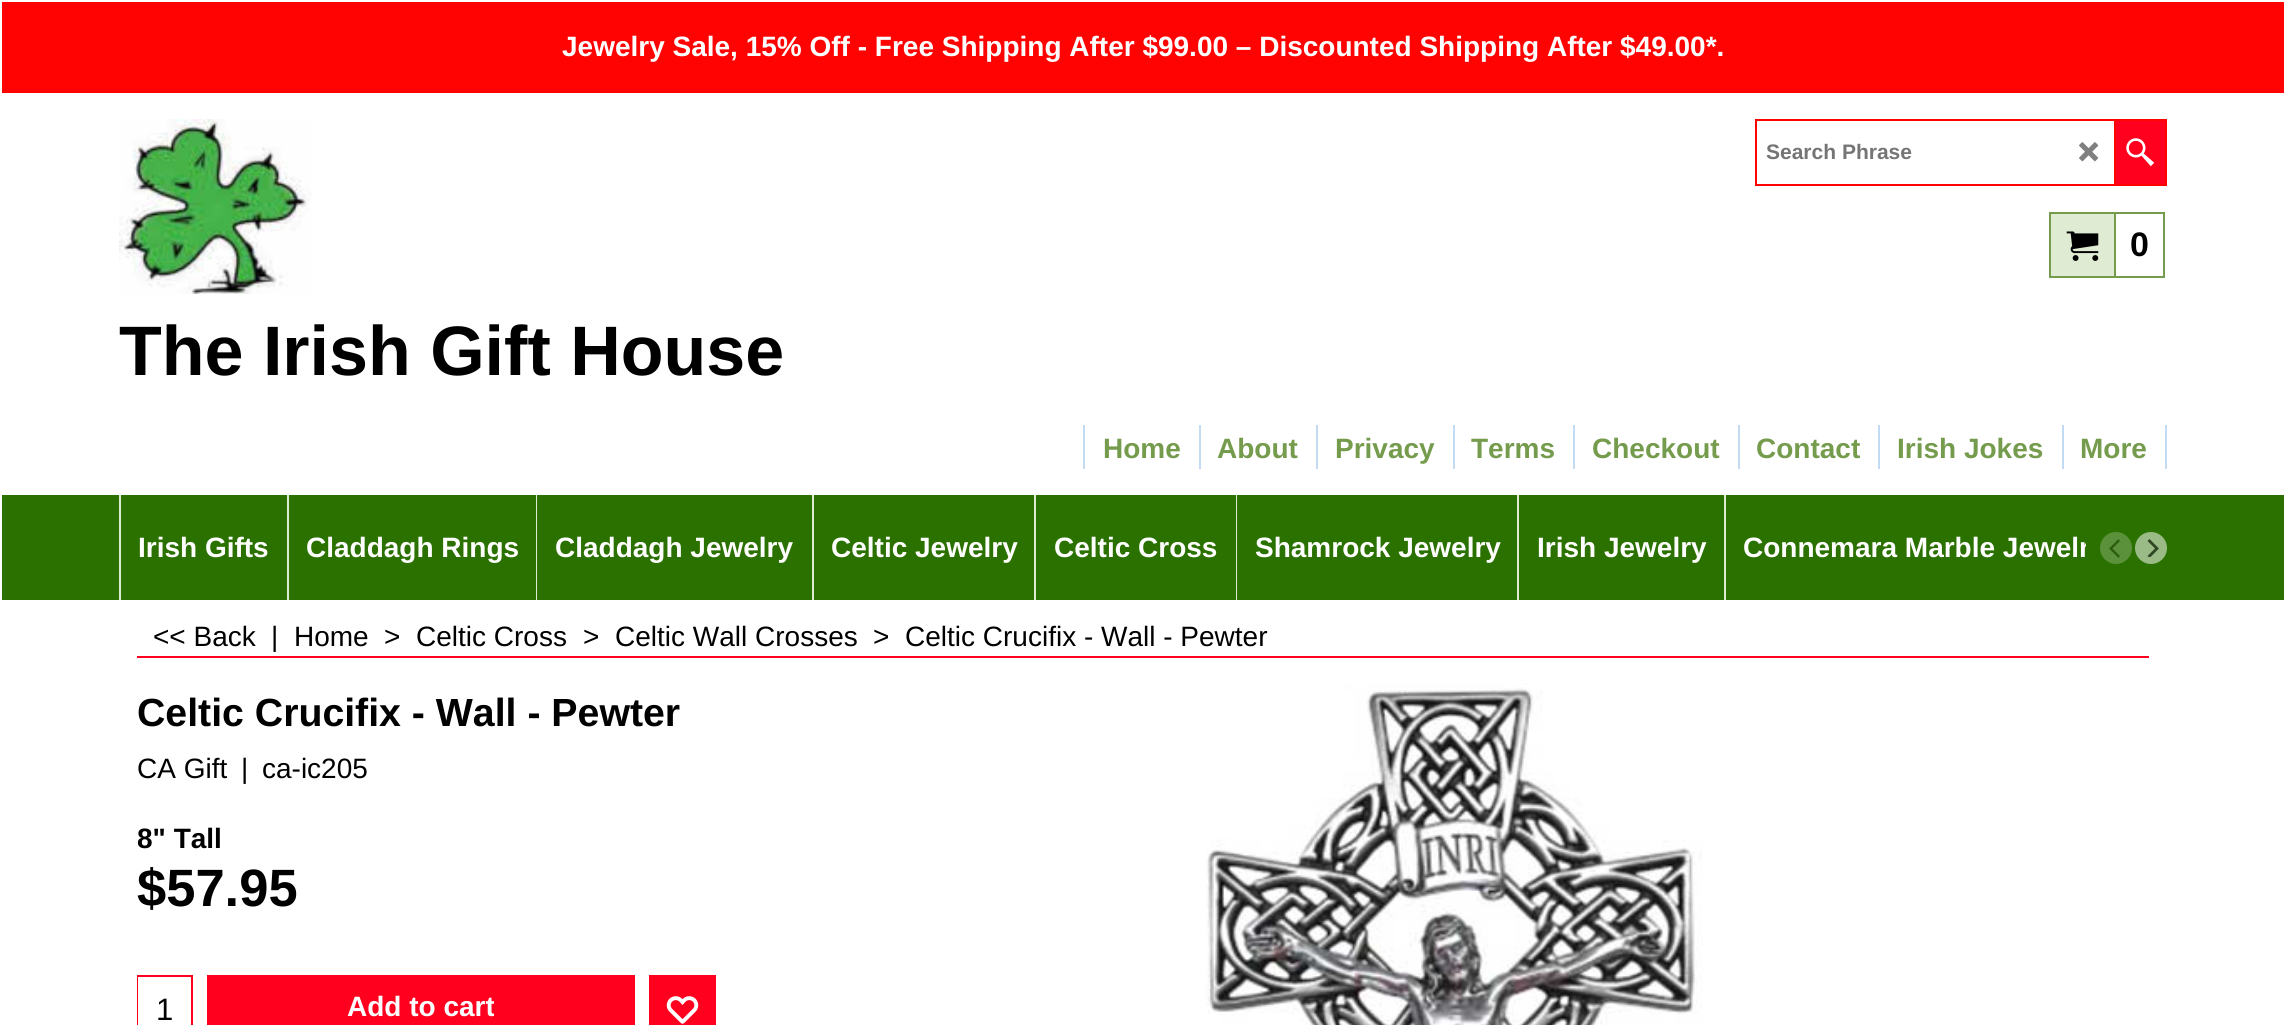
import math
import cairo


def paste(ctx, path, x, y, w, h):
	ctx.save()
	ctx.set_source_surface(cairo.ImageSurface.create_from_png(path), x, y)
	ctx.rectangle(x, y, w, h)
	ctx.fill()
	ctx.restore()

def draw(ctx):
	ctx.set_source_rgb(1, 1, 1)
	ctx.paint()
	ctx.set_source_rgb(1, 0.012, 0.012)
	ctx.rectangle(2, 2, 2282, 91)
	ctx.fill()
	ctx.select_font_face('Liberation Sans', cairo.FONT_SLANT_NORMAL, cairo.FONT_WEIGHT_BOLD)
	ctx.set_font_size(28)
	ctx.set_source_rgb(1, 1, 1)
	ctx.move_to(562, 56)
	ctx.show_text('Jewelry Sale, 15% Off - Free Shipping After $99.00 – Discounted Shipping After $49.00*.')
	ctx.rectangle(1756, 120, 410, 65)
	ctx.set_source_rgb(1, 0.012, 0.012)
	ctx.stroke()
	ctx.set_font_size(21)
	ctx.set_source_rgb(0.459, 0.459, 0.459)
	ctx.move_to(1766, 159)
	ctx.show_text('Search Phrase')
	paste(ctx, 'media/1.png', 2079, 142, 20, 20)
	ctx.set_source_rgb(1, 0, 0.122)
	ctx.rectangle(2116, 121, 49, 63)
	ctx.fill()
	ctx.set_source_rgb(1, 0.012, 0.012)
	ctx.rectangle(2114, 121, 2, 63)
	ctx.fill()
	paste(ctx, 'media/2.png', 2126, 138, 29, 29)
	ctx.set_source_rgb(0.875, 0.918, 0.827)
	ctx.rectangle(2050, 213, 65, 64)
	ctx.fill_preserve()
	ctx.set_source_rgb(0.459, 0.608, 0.302)
	ctx.stroke()
	paste(ctx, 'media/3.png', 2066, 231, 33, 30)
	ctx.rectangle(2115, 213, 49, 64)
	ctx.stroke()
	ctx.set_font_size(34)
	ctx.set_source_rgb(0, 0, 0)
	ctx.move_to(2130, 256)
	ctx.show_text('0')
	paste(ctx, 'media/4.png', 119, 119, 193, 175)
	ctx.set_font_size(70)
	ctx.move_to(119, 375)
	ctx.show_text('The Irish Gift House')
	ctx.set_source_rgb(0.761, 0.859, 0.949)
	ctx.rectangle(1083, 425, 2, 44)
	ctx.fill()
	ctx.set_font_size(28)
	ctx.set_source_rgb(0.459, 0.608, 0.302)
	ctx.move_to(1103, 458)
	ctx.show_text('Home')
	ctx.set_source_rgb(0.761, 0.859, 0.949)
	ctx.rectangle(1199, 425, 2, 44)
	ctx.fill()
	ctx.set_source_rgb(0.459, 0.608, 0.302)
	ctx.move_to(1217, 458)
	ctx.show_text('About')
	ctx.set_source_rgb(0.761, 0.859, 0.949)
	ctx.rectangle(1316, 425, 2, 44)
	ctx.fill()
	ctx.set_source_rgb(0.459, 0.608, 0.302)
	ctx.move_to(1335, 458)
	ctx.show_text('Privacy')
	ctx.set_source_rgb(0.761, 0.859, 0.949)
	ctx.rectangle(1453, 425, 2, 44)
	ctx.fill()
	ctx.set_source_rgb(0.459, 0.608, 0.302)
	ctx.move_to(1471, 458)
	ctx.show_text('Terms')
	ctx.set_source_rgb(0.761, 0.859, 0.949)
	ctx.rectangle(1573, 425, 2, 44)
	ctx.fill()
	ctx.set_source_rgb(0.459, 0.608, 0.302)
	ctx.move_to(1592, 458)
	ctx.show_text('Checkout')
	ctx.set_source_rgb(0.761, 0.859, 0.949)
	ctx.rectangle(1738, 425, 2, 44)
	ctx.fill()
	ctx.set_source_rgb(0.459, 0.608, 0.302)
	ctx.move_to(1756, 458)
	ctx.show_text('Contact')
	ctx.set_source_rgb(0.761, 0.859, 0.949)
	ctx.rectangle(1878, 425, 2, 44)
	ctx.fill()
	ctx.set_source_rgb(0.459, 0.608, 0.302)
	ctx.move_to(1897, 458)
	ctx.show_text('Irish Jokes')
	ctx.set_source_rgb(0.761, 0.859, 0.949)
	ctx.rectangle(2062, 425, 2, 44)
	ctx.fill()
	ctx.set_source_rgb(0.459, 0.608, 0.302)
	ctx.move_to(2080, 458)
	ctx.show_text('More')
	ctx.set_source_rgb(0.761, 0.859, 0.949)
	ctx.rectangle(2165, 425, 2, 44)
	ctx.fill()
	ctx.set_source_rgb(0.165, 0.443, 0)
	ctx.rectangle(2, 495, 2282, 105)
	ctx.fill()
	ctx.set_source_rgb(0.875, 0.918, 0.827)
	ctx.rectangle(119, 495, 2, 105)
	ctx.fill()
	ctx.set_source_rgb(1, 1, 1)
	ctx.move_to(138, 557)
	ctx.show_text('Irish Gifts')
	ctx.set_source_rgb(0.875, 0.918, 0.827)
	ctx.rectangle(287, 495, 2, 105)
	ctx.fill()
	ctx.set_source_rgb(1, 1, 1)
	ctx.move_to(306, 557)
	ctx.show_text('Claddagh Rings')
	ctx.set_source_rgb(0.875, 0.918, 0.827)
	ctx.rectangle(536, 495, 1, 105)
	ctx.fill()
	ctx.set_source_rgb(1, 1, 1)
	ctx.move_to(555, 557)
	ctx.show_text('Claddagh Jewelry')
	ctx.set_source_rgb(0.875, 0.918, 0.827)
	ctx.rectangle(812, 495, 2, 105)
	ctx.fill()
	ctx.set_source_rgb(1, 1, 1)
	ctx.move_to(831, 557)
	ctx.show_text('Celtic Jewelry')
	ctx.set_source_rgb(0.875, 0.918, 0.827)
	ctx.rectangle(1034, 495, 2, 105)
	ctx.fill()
	ctx.set_source_rgb(1, 1, 1)
	ctx.move_to(1054, 557)
	ctx.show_text('Celtic Cross')
	ctx.set_source_rgb(0.875, 0.918, 0.827)
	ctx.rectangle(1236, 495, 1, 105)
	ctx.fill()
	ctx.set_source_rgb(1, 1, 1)
	ctx.move_to(1255, 557)
	ctx.show_text('Shamrock Jewelry')
	ctx.set_source_rgb(0.875, 0.918, 0.827)
	ctx.rectangle(1517, 495, 2, 105)
	ctx.fill()
	ctx.set_source_rgb(1, 1, 1)
	ctx.move_to(1537, 557)
	ctx.show_text('Irish Jewelry')
	ctx.set_source_rgb(0.875, 0.918, 0.827)
	ctx.rectangle(1724, 495, 2, 105)
	ctx.fill()
	ctx.save()
	ctx.rectangle(119, 495, 1967, 105)
	ctx.clip()
	ctx.set_source_rgb(1, 1, 1)
	ctx.move_to(1743, 557)
	ctx.show_text('Connemara Marble Jewelr')
	ctx.restore()
	ctx.set_source_rgb(0.353, 0.569, 0.227)
	ctx.new_path()
	ctx.arc(2116, 548, 16, 0, 2 * math.pi)
	ctx.fill()
	ctx.set_source_rgb(0.176, 0.369, 0.059)
	ctx.new_path()
	ctx.move_to(2109, 548.5)
	ctx.line_to(2118.5, 558)
	ctx.line_to(2120, 556)
	ctx.line_to(2112.5, 548.5)
	ctx.line_to(2120, 541)
	ctx.line_to(2118.5, 539)
	ctx.close_path()
	ctx.fill()
	ctx.set_source_rgb(0.604, 0.733, 0.525)
	ctx.arc(2151, 548, 16, 0, 2 * math.pi)
	ctx.fill()
	ctx.save()
	ctx.rectangle(2142, 539, 18, 18)
	ctx.clip()
	ctx.set_source_rgb(0.188, 0.275, 0.141)
	ctx.new_path()
	ctx.move_to(2159, 548.5)
	ctx.line_to(2149.5, 539)
	ctx.line_to(2147.5, 541)
	ctx.line_to(2155, 548.5)
	ctx.line_to(2147.5, 556)
	ctx.line_to(2149.5, 558)
	ctx.close_path()
	ctx.fill()
	ctx.restore()
	ctx.set_source_rgb(1, 0, 0.122)
	ctx.rectangle(137, 656, 2012, 2)
	ctx.fill()
	ctx.select_font_face('Liberation Sans')
	ctx.set_source_rgb(0, 0, 0)
	for x, y, s in [
		(153, 646, '<< Back'),
		(271, 646, '|'),
		(294, 646, 'Home'),
		(384, 646, '>'),
		(416, 646, 'Celtic Cross'),
		(583, 646, '>'),
		(615, 646, 'Celtic Wall Crosses'),
		(873, 646, '>'),
		(905, 646, 'Celtic Crucifix - Wall - Pewter'),
	]:
		ctx.move_to(x, y)
		ctx.show_text(s)
	ctx.select_font_face('Liberation Sans', cairo.FONT_SLANT_NORMAL, cairo.FONT_WEIGHT_BOLD)
	ctx.set_font_size(39.25)
	ctx.move_to(137, 726)
	ctx.show_text('Celtic Crucifix - Wall - Pewter')
	ctx.select_font_face('Liberation Sans')
	ctx.set_font_size(28)
	for x, y, s in [
		(137, 778, 'CA Gift'),
		(241, 778, '|'),
		(262, 778, 'ca-ic205'),
	]:
		ctx.move_to(x, y)
		ctx.show_text(s)
	ctx.select_font_face('Liberation Sans', cairo.FONT_SLANT_NORMAL, cairo.FONT_WEIGHT_BOLD)
	ctx.move_to(137, 848)
	ctx.show_text('8" Tall')
	ctx.set_font_size(52.5)
	ctx.move_to(137, 906)
	ctx.show_text('$57.95')
	ctx.set_source_rgb(1, 0, 0.122)
	ctx.rectangle(137, 975, 56, 50)
	ctx.fill()
	ctx.set_source_rgb(1, 1, 1)
	ctx.rectangle(138, 977, 53, 48)
	ctx.fill()
	ctx.select_font_face('Liberation Sans')
	ctx.set_font_size(31)
	ctx.set_source_rgb(0, 0, 0)
	ctx.move_to(156, 1020)
	ctx.show_text('1')
	ctx.set_source_rgb(1, 0, 0.122)
	ctx.rectangle(207, 975, 428, 50)
	ctx.fill()
	ctx.select_font_face('Liberation Sans', cairo.FONT_SLANT_NORMAL, cairo.FONT_WEIGHT_BOLD)
	ctx.set_font_size(28)
	ctx.set_source_rgb(1, 1, 1)
	ctx.move_to(347, 1016)
	ctx.show_text('Add to cart')
	ctx.set_source_rgb(1, 0, 0.122)
	ctx.rectangle(649, 975, 67, 50)
	ctx.fill()
	paste(ctx, 'media/5.png', 666, 996, 33, 28)
	paste(ctx, 'media/6.png', 1206, 683, 497, 342)


surface = cairo.ImageSurface(cairo.FORMAT_RGB24, 2285, 1025)
ctx = cairo.Context(surface)
options = cairo.FontOptions()
options.set_hint_metrics(cairo.HINT_METRICS_OFF)
options.set_hint_style(cairo.HINT_STYLE_NONE)
ctx.set_font_options(options)
ctx.set_miter_limit(4)
draw(ctx)
surface.write_to_png('image.png')
